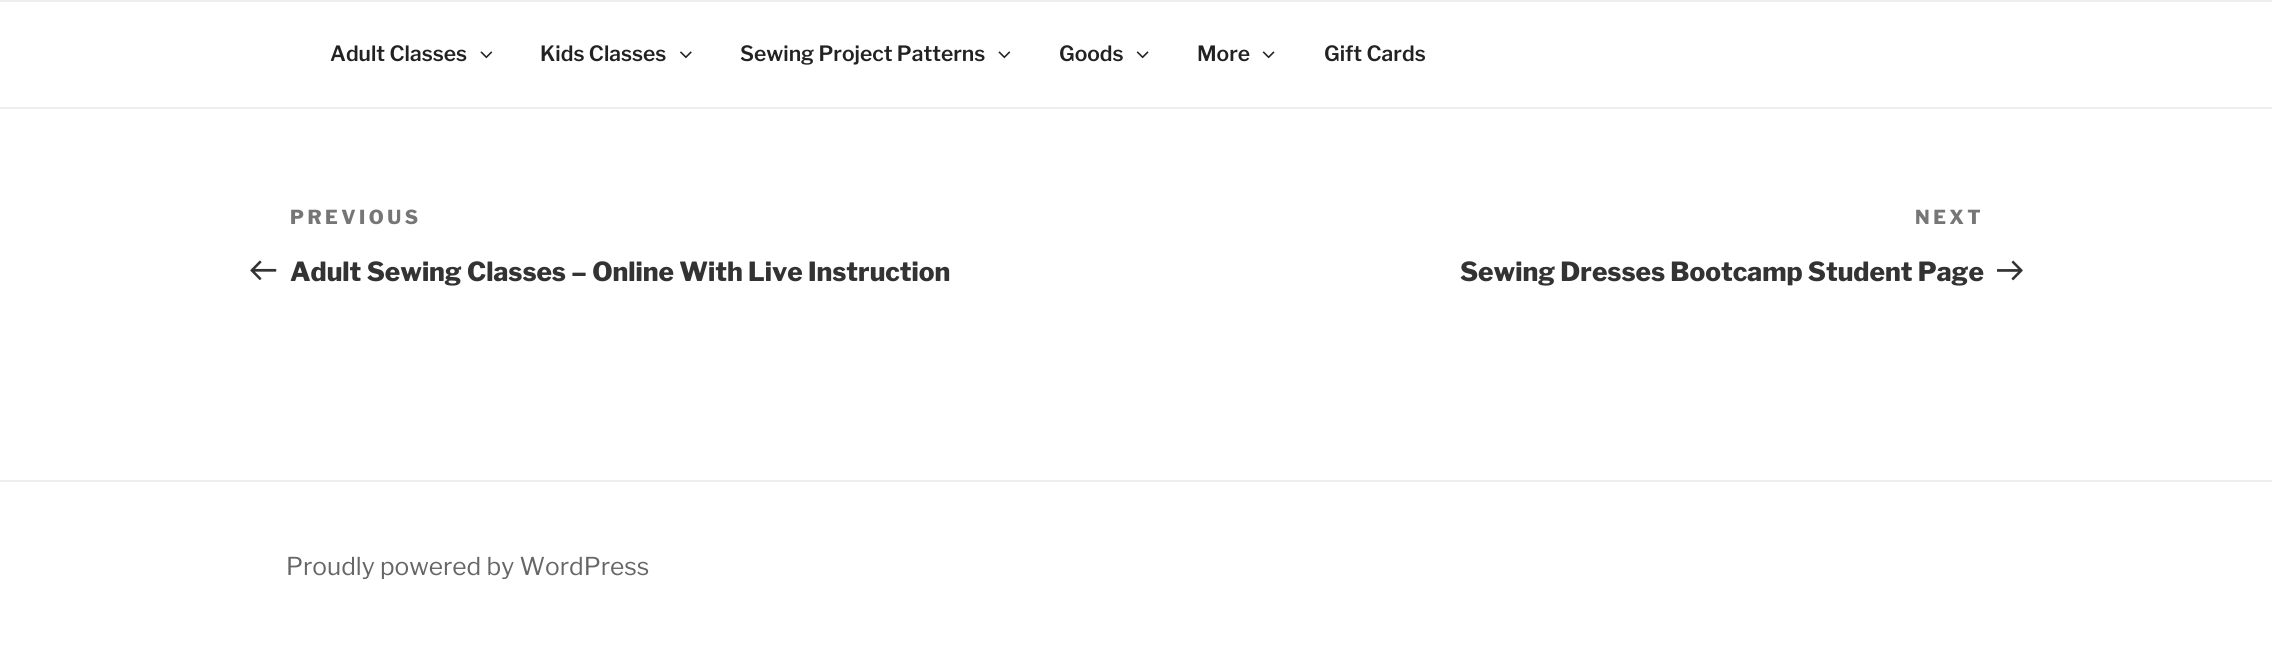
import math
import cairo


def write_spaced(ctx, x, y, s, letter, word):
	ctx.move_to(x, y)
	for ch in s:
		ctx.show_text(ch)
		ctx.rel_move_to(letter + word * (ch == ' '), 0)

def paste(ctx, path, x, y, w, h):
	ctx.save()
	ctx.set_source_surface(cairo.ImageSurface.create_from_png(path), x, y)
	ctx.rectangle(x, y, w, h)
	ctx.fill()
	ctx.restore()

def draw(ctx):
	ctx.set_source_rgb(1, 1, 1)
	ctx.paint()
	ctx.set_source_rgb(0.933, 0.933, 0.933)
	ctx.rectangle(0, 0, 2272, 2)
	ctx.fill()
	ctx.rectangle(0, 107, 2272, 2)
	ctx.fill()
	ctx.select_font_face('Libre Franklin SemiBold')
	ctx.set_font_size(21)
	ctx.set_source_rgb(0.133, 0.133, 0.133)
	ctx.move_to(330, 61)
	ctx.show_text('Adult Classes')
	paste(ctx, 'media/1.png', 480, 51, 13, 8)
	ctx.move_to(540, 61)
	ctx.show_text('Kids Classes')
	paste(ctx, 'media/2.png', 680, 51, 12, 8)
	ctx.move_to(740, 61)
	ctx.show_text('Sewing Project Patterns')
	paste(ctx, 'media/1.png', 998, 51, 13, 8)
	ctx.move_to(1059, 61)
	ctx.show_text('Goods')
	paste(ctx, 'media/3.png', 1136, 51, 13, 8)
	ctx.move_to(1197, 61)
	ctx.show_text('More')
	paste(ctx, 'media/3.png', 1262, 51, 13, 8)
	ctx.move_to(1324, 61)
	ctx.show_text('Gift Cards')
	ctx.select_font_face('Libre Franklin ExtraBold')
	ctx.set_font_size(19.25)
	ctx.set_source_rgb(0.463, 0.463, 0.463)
	write_spaced(ctx, 290, 224, 'PREVIOUS', 3.5, 0)
	paste(ctx, 'media/4.png', 250, 260, 27, 21)
	ctx.set_font_size(26.25)
	ctx.set_source_rgb(0.2, 0.2, 0.2)
	ctx.move_to(290, 281)
	ctx.show_text('Adult Sewing Classes – Online With Live Instruction')
	ctx.set_font_size(19.25)
	ctx.set_source_rgb(0.463, 0.463, 0.463)
	write_spaced(ctx, 1915, 224, 'NEXT', 3.5, 0)
	ctx.set_font_size(26.25)
	ctx.set_source_rgb(0.2, 0.2, 0.2)
	ctx.move_to(1460, 281)
	ctx.show_text('Sewing Dresses Bootcamp Student Page')
	paste(ctx, 'media/5.png', 1997, 260, 26, 21)
	ctx.set_source_rgb(0.933, 0.933, 0.933)
	ctx.rectangle(0, 480, 2272, 2)
	ctx.fill()
	ctx.select_font_face('Libre Franklin')
	ctx.set_font_size(24.5)
	ctx.set_source_rgb(0.4, 0.4, 0.4)
	ctx.move_to(286, 575)
	ctx.show_text('Proudly powered by WordPress')


surface = cairo.ImageSurface(cairo.FORMAT_RGB24, 2272, 647)
ctx = cairo.Context(surface)
options = cairo.FontOptions()
options.set_hint_metrics(cairo.HINT_METRICS_OFF)
options.set_hint_style(cairo.HINT_STYLE_NONE)
ctx.set_font_options(options)
ctx.set_miter_limit(4)
draw(ctx)
surface.write_to_png('image.png')
